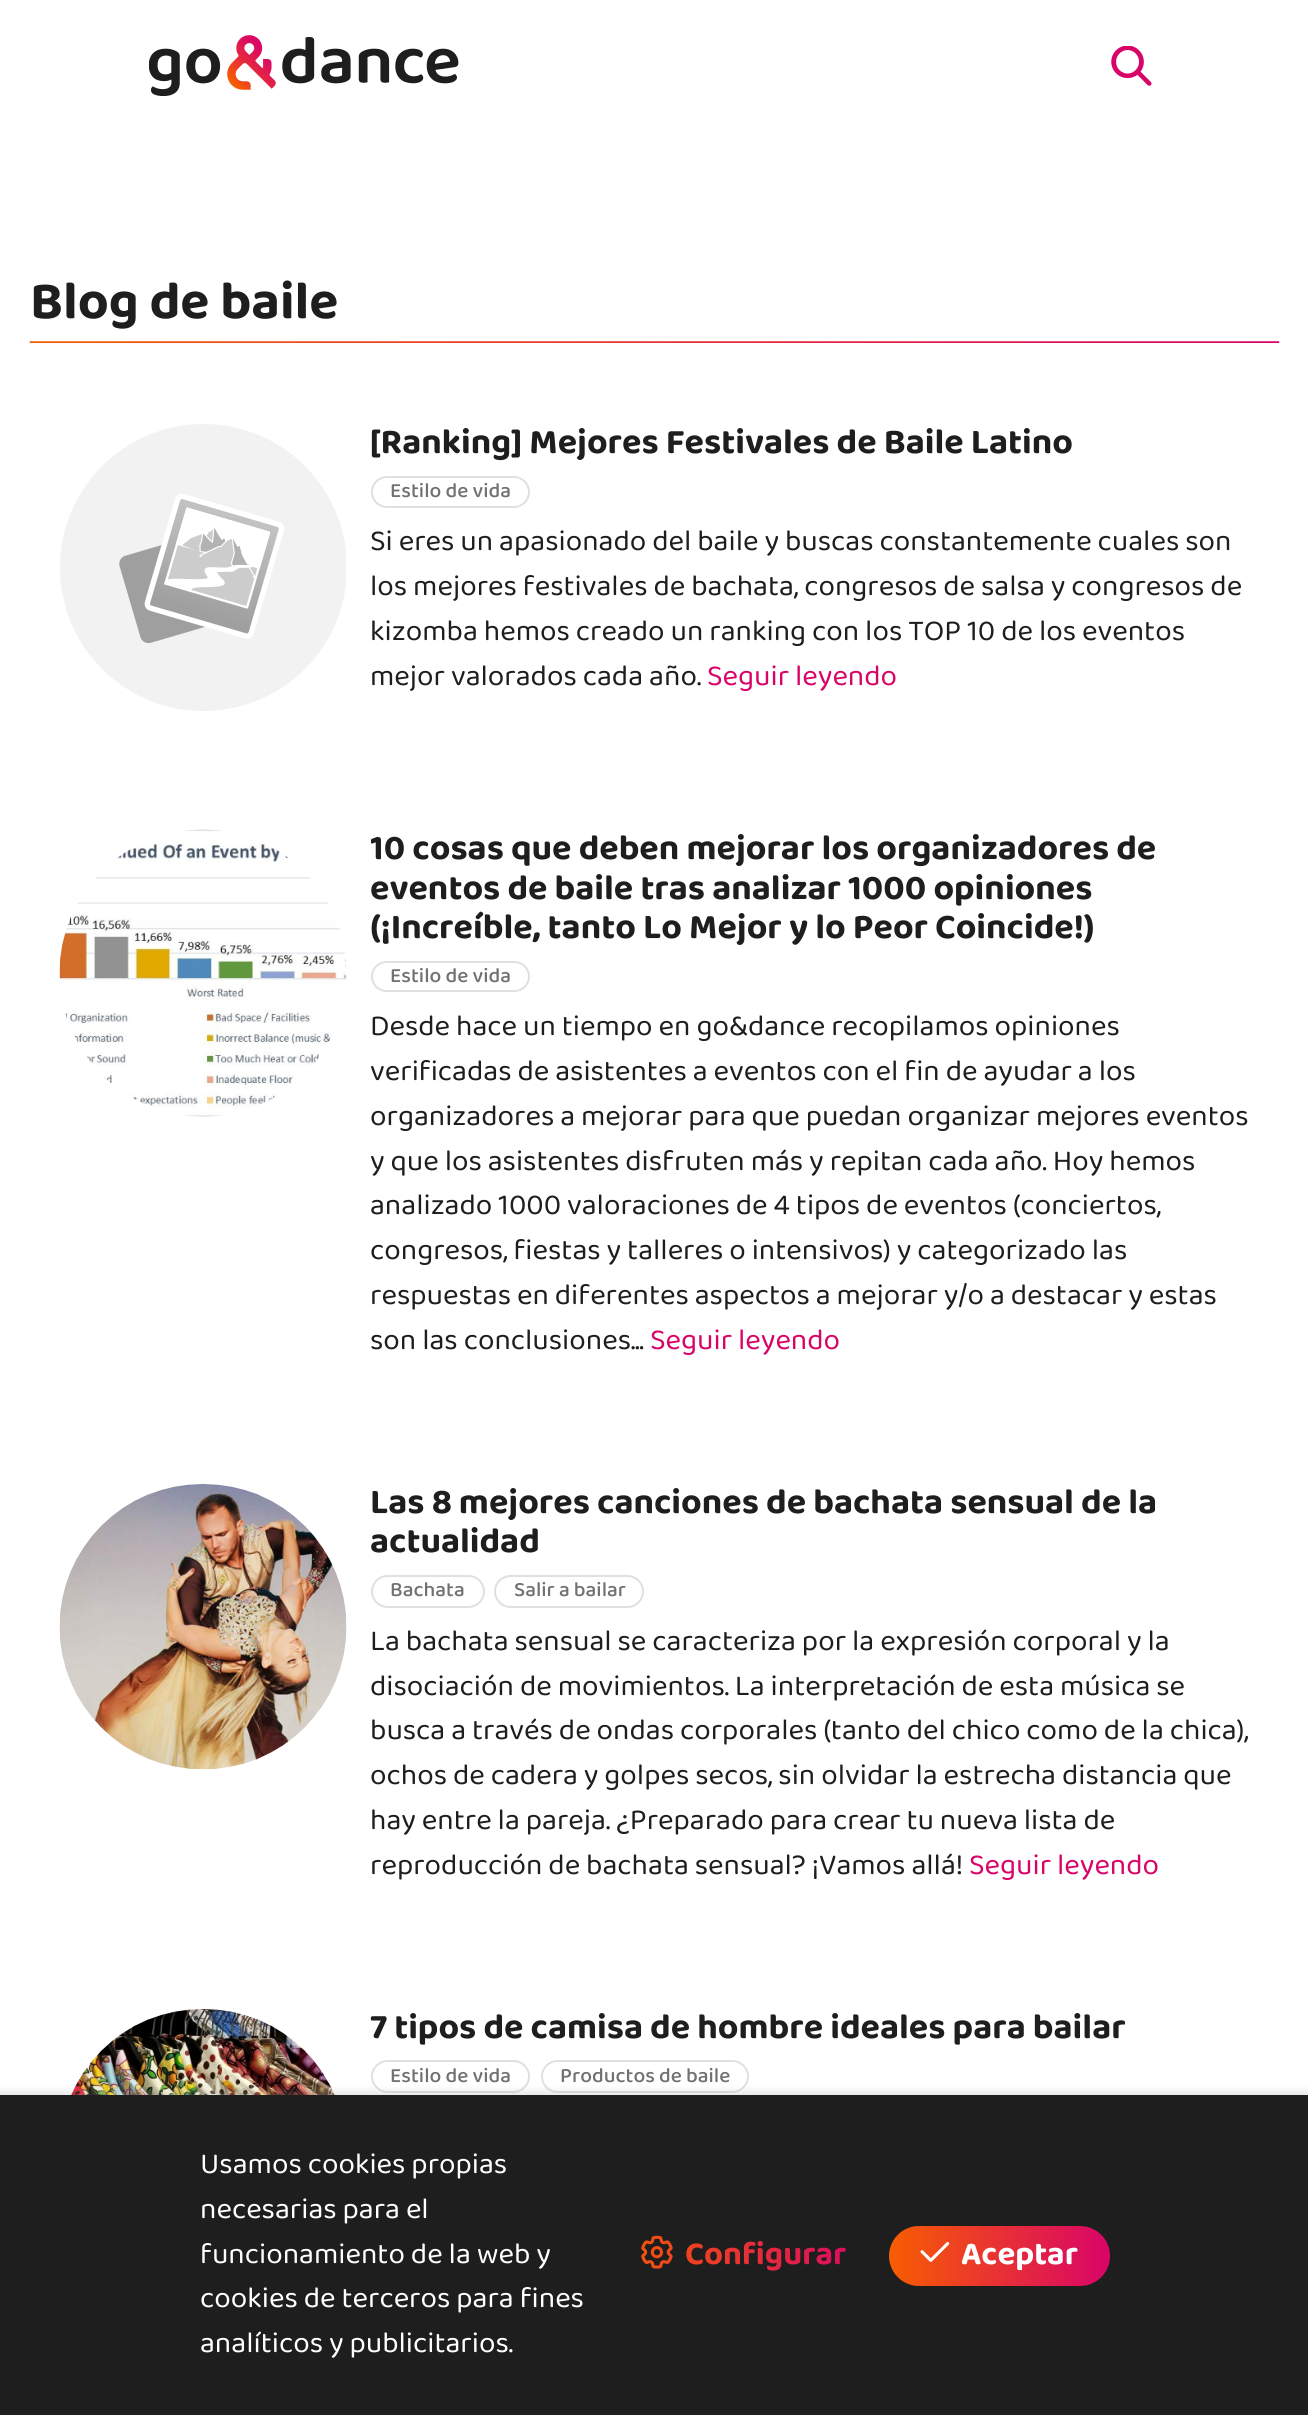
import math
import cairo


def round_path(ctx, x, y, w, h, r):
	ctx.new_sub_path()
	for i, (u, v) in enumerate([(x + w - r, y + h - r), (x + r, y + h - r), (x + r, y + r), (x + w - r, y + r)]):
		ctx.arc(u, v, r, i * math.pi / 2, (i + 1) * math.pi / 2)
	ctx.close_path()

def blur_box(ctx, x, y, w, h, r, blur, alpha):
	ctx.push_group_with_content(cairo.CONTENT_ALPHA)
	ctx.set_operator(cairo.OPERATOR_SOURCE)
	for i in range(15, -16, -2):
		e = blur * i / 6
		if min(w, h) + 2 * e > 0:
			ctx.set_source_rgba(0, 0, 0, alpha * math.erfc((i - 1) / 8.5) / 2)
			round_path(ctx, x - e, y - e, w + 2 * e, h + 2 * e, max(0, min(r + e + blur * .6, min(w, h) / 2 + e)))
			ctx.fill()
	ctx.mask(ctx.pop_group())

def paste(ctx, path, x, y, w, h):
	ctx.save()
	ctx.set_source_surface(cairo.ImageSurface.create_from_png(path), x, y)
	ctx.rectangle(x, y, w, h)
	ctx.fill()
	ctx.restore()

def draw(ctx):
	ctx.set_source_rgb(1, 1, 1)
	ctx.paint()
	paste(ctx, 'media/1.png', 149, 35, 310, 61)
	paste(ctx, 'media/2.png', 1111, 46, 41, 40)
	paste(ctx, 'media/3.png', 29, 341, 1251, 2)
	ctx.select_font_face('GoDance', cairo.FONT_SLANT_NORMAL, cairo.FONT_WEIGHT_BOLD)
	ctx.set_font_size(53.75)
	ctx.set_source_rgb(0.118, 0.118, 0.118)
	ctx.move_to(30, 318)
	ctx.show_text('Blog de baile')
	paste(ctx, 'media/4.png', 60, 424, 286, 287)
	ctx.set_font_size(35.8)
	ctx.move_to(370, 453)
	ctx.show_text('[Ranking] Mejores Festivales de Baile Latino')
	round_path(ctx, 372, 477, 157, 30, 15)
	ctx.set_source_rgb(0.878, 0.878, 0.878)
	ctx.stroke()
	ctx.select_font_face('Baloo Thambi 2 Medium')
	ctx.set_font_size(21)
	ctx.set_source_rgb(0.443, 0.443, 0.443)
	ctx.move_to(390, 497)
	ctx.show_text('Estilo de vida')
	ctx.select_font_face('GoDance')
	ctx.set_font_size(29.85)
	ctx.set_source_rgb(0.118, 0.118, 0.118)
	for x, y, s in [
		(370, 550, 'Si eres un apasionado del baile y buscas constantemente cuales son'),
		(370, 595, 'los mejores festivales de bachata, congresos de salsa y congresos de'),
		(370, 640, 'kizomba hemos creado un ranking con los TOP 10 de los eventos'),
		(370, 685, 'mejor valorados cada año.'),
	]:
		ctx.move_to(x, y)
		ctx.show_text(s)
	ctx.set_source_rgb(0.851, 0.016, 0.408)
	ctx.move_to(707, 685)
	ctx.show_text('Seguir leyendo')
	paste(ctx, 'media/5.png', 59, 829, 288, 288)
	ctx.save()
	ctx.rectangle(371, 830, 879, 119)
	ctx.clip()
	ctx.select_font_face('GoDance', cairo.FONT_SLANT_NORMAL, cairo.FONT_WEIGHT_BOLD)
	ctx.set_font_size(35.8)
	ctx.set_source_rgb(0.118, 0.118, 0.118)
	ctx.move_to(370, 859)
	ctx.show_text('10 cosas que deben mejorar los organizadores de')
	ctx.restore()
	ctx.select_font_face('GoDance', cairo.FONT_SLANT_NORMAL, cairo.FONT_WEIGHT_BOLD)
	ctx.set_font_size(35.8)
	ctx.set_source_rgb(0.118, 0.118, 0.118)
	ctx.move_to(370, 899)
	ctx.show_text('eventos de baile tras analizar 1000 opiniones')
	ctx.move_to(370, 938)
	ctx.show_text('(¡Increíble, tanto Lo Mejor y lo Peor Coincide!)')
	round_path(ctx, 372, 962, 157, 29, 14.5)
	ctx.set_source_rgb(0.878, 0.878, 0.878)
	ctx.stroke()
	ctx.select_font_face('Baloo Thambi 2 Medium')
	ctx.set_font_size(21)
	ctx.set_source_rgb(0.443, 0.443, 0.443)
	ctx.move_to(390, 982)
	ctx.show_text('Estilo de vida')
	ctx.select_font_face('GoDance')
	ctx.set_font_size(29.85)
	ctx.set_source_rgb(0.118, 0.118, 0.118)
	for x, y, s in [
		(370, 1035, 'Desde hace un tiempo en go&dance recopilamos opiniones'),
		(370, 1080, 'verificadas de asistentes a eventos con el fin de ayudar a los'),
		(370, 1125, 'organizadores a mejorar para que puedan organizar mejores eventos'),
		(370, 1170, 'y que los asistentes disfruten más y repitan cada año. Hoy hemos'),
		(370, 1214, 'analizado 1000 valoraciones de 4 tipos de eventos (conciertos,'),
		(370, 1259, 'congresos, fiestas y talleres o intensivos) y categorizado las'),
		(370, 1304, 'respuestas en diferentes aspectos a mejorar y/o a destacar y estas'),
		(370, 1349, 'son las conclusiones...'),
	]:
		ctx.move_to(x, y)
		ctx.show_text(s)
	ctx.set_source_rgb(0.851, 0.016, 0.408)
	ctx.move_to(650, 1349)
	ctx.show_text('Seguir leyendo')
	paste(ctx, 'media/6.png', 59, 1484, 288, 286)
	ctx.select_font_face('GoDance', cairo.FONT_SLANT_NORMAL, cairo.FONT_WEIGHT_BOLD)
	ctx.set_font_size(35.8)
	ctx.set_source_rgb(0.118, 0.118, 0.118)
	ctx.move_to(370, 1513)
	ctx.show_text('Las 8 mejores canciones de bachata sensual de la')
	ctx.move_to(370, 1552)
	ctx.show_text('actualidad')
	round_path(ctx, 372, 1576, 112, 31, 15.5)
	ctx.set_source_rgb(0.878, 0.878, 0.878)
	ctx.stroke()
	ctx.select_font_face('Baloo Thambi 2 Medium')
	ctx.set_font_size(21)
	ctx.set_source_rgb(0.443, 0.443, 0.443)
	ctx.move_to(390, 1596)
	ctx.show_text('Bachata')
	round_path(ctx, 495, 1576, 148, 31, 15.5)
	ctx.set_source_rgb(0.878, 0.878, 0.878)
	ctx.stroke()
	ctx.set_source_rgb(0.443, 0.443, 0.443)
	ctx.move_to(514, 1596)
	ctx.show_text('Salir a bailar')
	ctx.select_font_face('GoDance')
	ctx.set_font_size(29.85)
	ctx.set_source_rgb(0.118, 0.118, 0.118)
	for x, y, s in [
		(370, 1650, 'La bachata sensual se caracteriza por la expresión corporal y la'),
		(370, 1695, 'disociación de movimientos. La interpretación de esta música se'),
		(370, 1739, 'busca a través de ondas corporales (tanto del chico como de la chica),'),
		(370, 1784, 'ochos de cadera y golpes secos, sin olvidar la estrecha distancia que'),
		(370, 1829, 'hay entre la pareja. ¿Preparado para crear tu nueva lista de'),
		(370, 1874, 'reproducción de bachata sensual? ¡Vamos allá!'),
	]:
		ctx.move_to(x, y)
		ctx.show_text(s)
	ctx.set_source_rgb(0.851, 0.016, 0.408)
	ctx.move_to(969, 1874)
	ctx.show_text('Seguir leyendo')
	paste(ctx, 'media/7.png', 71, 2009, 264, 86)
	ctx.select_font_face('GoDance', cairo.FONT_SLANT_NORMAL, cairo.FONT_WEIGHT_BOLD)
	ctx.set_font_size(35.8)
	ctx.set_source_rgb(0.118, 0.118, 0.118)
	ctx.move_to(370, 2038)
	ctx.show_text('7 tipos de camisa de hombre ideales para bailar')
	round_path(ctx, 372, 2061, 157, 31, 15.5)
	ctx.set_source_rgb(0.878, 0.878, 0.878)
	ctx.stroke()
	ctx.select_font_face('Baloo Thambi 2 Medium')
	ctx.set_font_size(21)
	ctx.set_source_rgb(0.443, 0.443, 0.443)
	ctx.move_to(390, 2082)
	ctx.show_text('Estilo de vida')
	round_path(ctx, 542, 2061, 206, 31, 15.5)
	ctx.set_source_rgb(0.878, 0.878, 0.878)
	ctx.stroke()
	ctx.set_source_rgb(0.443, 0.443, 0.443)
	ctx.move_to(560, 2082)
	ctx.show_text('Productos de baile')
	ctx.set_source_rgb(0.62, 0.62, 0.62)
	blur_box(ctx, -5, 2091, 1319, 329, 0, 3.5, 0.25)
	ctx.set_source_rgb(0.118, 0.118, 0.118)
	ctx.rectangle(0, 2095, 1308, 320)
	ctx.fill()
	ctx.select_font_face('GoDance')
	ctx.set_font_size(29.85)
	ctx.set_source_rgb(1, 1, 1)
	for x, y, s in [
		(200, 2173, 'Usamos cookies propias'),
		(200, 2218, 'necesarias para el'),
		(200, 2263, 'funcionamiento de la web y'),
		(200, 2307, 'cookies de terceros para fines'),
		(200, 2352, 'analíticos y publicitarios.'),
	]:
		ctx.move_to(x, y)
		ctx.show_text(s)
	paste(ctx, 'media/8.png', 641, 2235, 32, 34)
	ctx.select_font_face('GoDance', cairo.FONT_SLANT_NORMAL, cairo.FONT_WEIGHT_BOLD)
	ctx.set_font_size(33)
	gradient = cairo.LinearGradient(608, 2255, 877, 2255)
	gradient.add_color_stop_rgba(0, 0.969, 0.365, 0.008, 1)
	gradient.add_color_stop_rgba(1, 0.851, 0.016, 0.408, 1)
	ctx.set_source(gradient)
	ctx.move_to(685, 2264)
	ctx.show_text('Configurar')
	gradient = cairo.LinearGradient(889, 2256, 1110, 2256)
	gradient.add_color_stop_rgba(0, 0.969, 0.365, 0.008, 1)
	gradient.add_color_stop_rgba(1, 0.851, 0.016, 0.408, 1)
	ctx.set_source(gradient)
	round_path(ctx, 889, 2226, 221, 60, 30)
	ctx.fill()
	paste(ctx, 'media/9.png', 920, 2241, 30, 21)
	ctx.set_source_rgb(1, 1, 1)
	ctx.move_to(961, 2264)
	ctx.show_text('Aceptar')


surface = cairo.ImageSurface(cairo.FORMAT_RGB24, 1308, 2415)
ctx = cairo.Context(surface)
options = cairo.FontOptions()
options.set_hint_metrics(cairo.HINT_METRICS_OFF)
options.set_hint_style(cairo.HINT_STYLE_NONE)
ctx.set_font_options(options)
ctx.set_miter_limit(4)
draw(ctx)
surface.write_to_png('image.png')
